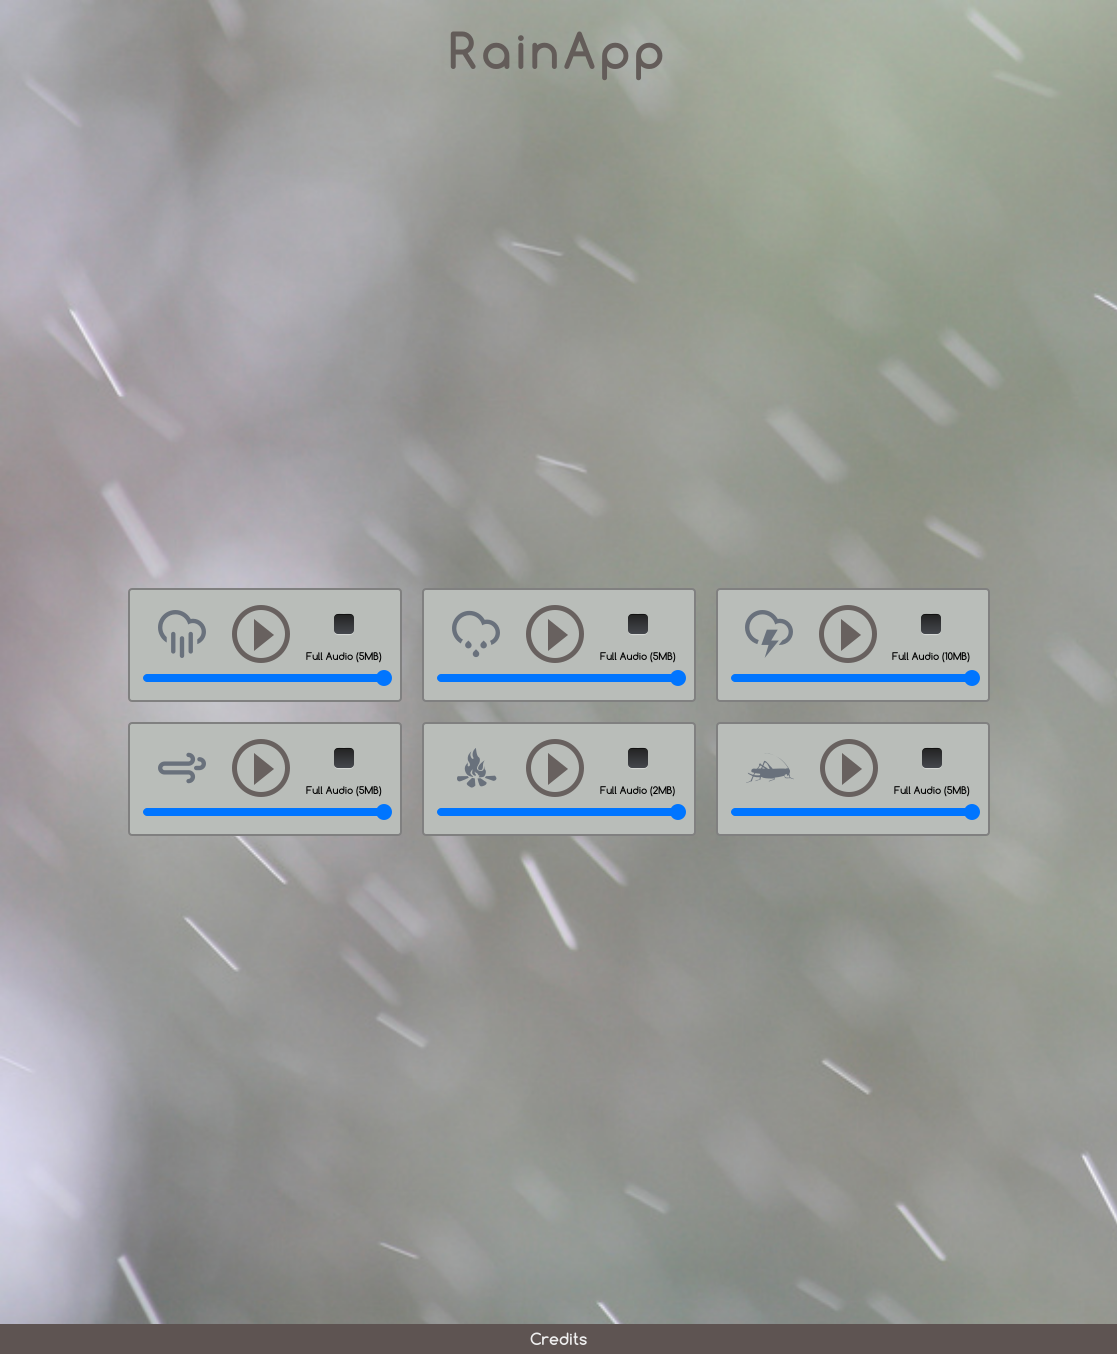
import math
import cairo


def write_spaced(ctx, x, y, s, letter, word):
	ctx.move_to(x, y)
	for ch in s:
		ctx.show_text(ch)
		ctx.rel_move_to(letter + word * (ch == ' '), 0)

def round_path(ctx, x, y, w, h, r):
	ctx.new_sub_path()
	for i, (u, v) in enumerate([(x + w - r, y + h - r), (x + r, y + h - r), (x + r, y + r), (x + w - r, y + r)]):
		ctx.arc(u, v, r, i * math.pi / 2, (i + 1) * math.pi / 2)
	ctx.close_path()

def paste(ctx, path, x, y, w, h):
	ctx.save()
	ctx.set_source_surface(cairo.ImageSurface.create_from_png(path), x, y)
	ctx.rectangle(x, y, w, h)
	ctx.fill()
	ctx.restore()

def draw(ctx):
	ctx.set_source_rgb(1, 1, 1)
	ctx.paint()
	paste(ctx, 'media/1.png', 0, 0, 1117, 1324)
	ctx.select_font_face('Comfortaa', cairo.FONT_SLANT_NORMAL, cairo.FONT_WEIGHT_BOLD)
	ctx.set_font_size(48)
	ctx.set_source_rgb(0.388, 0.361, 0.349)
	write_spaced(ctx, 449, 69, 'RainApp', 4, 0)
	ctx.set_source_rgb(0.725, 0.741, 0.725)
	round_path(ctx, 129, 589, 272, 112, 3)
	ctx.fill_preserve()
	ctx.set_source_rgb(0.502, 0.502, 0.502)
	ctx.stroke()
	paste(ctx, 'media/2.png', 158, 610, 48, 48)
	ctx.arc(261, 634, 26.5, 0, 2 * math.pi)
	ctx.set_source_rgb(0.408, 0.38, 0.373)
	ctx.set_line_width(5)
	ctx.stroke()
	ctx.new_path()
	ctx.move_to(254, 651)
	ctx.line_to(254, 619)
	ctx.line_to(274, 635)
	ctx.close_path()
	ctx.fill()
	ctx.set_source_rgb(0.835, 0.843, 0.835)
	ctx.new_path()
	ctx.move_to(334, 630)
	ctx.curve_to(334, 636.5, 339.5, 635, 344, 635)
	ctx.curve_to(348.5, 635, 354, 636.5, 354, 630)
	ctx.curve_to(354, 635, 347, 634, 344, 634)
	ctx.curve_to(341, 634, 334, 635, 334, 630)
	ctx.close_path()
	ctx.fill()
	gradient = cairo.LinearGradient(344, 614, 344, 634)
	gradient.add_color_stop_rgba(0, 0.133, 0.133, 0.133, 1)
	gradient.add_color_stop_rgba(1, 0.271, 0.282, 0.302, 1)
	ctx.set_source(gradient)
	round_path(ctx, 334, 614, 20, 20, 4)
	ctx.fill()
	ctx.set_source_rgba(0, 0, 0, 0.5)
	ctx.set_fill_rule(cairo.FILL_RULE_EVEN_ODD)
	ctx.new_path()
	ctx.move_to(338, 615)
	ctx.line_to(352, 615)
	ctx.curve_to(353, 616, 354, 617, 354, 618.5)
	ctx.curve_to(354, 612.5, 348, 614, 344, 614)
	ctx.curve_to(338, 614, 334, 612.5, 334, 620)
	ctx.curve_to(334, 617.5, 335, 615, 338, 615)
	ctx.close_path()
	ctx.move_to(354, 630.5)
	ctx.line_to(354, 630.5)
	ctx.close_path()
	ctx.fill()
	ctx.set_font_size(10)
	ctx.set_source_rgb(0, 0, 0)
	ctx.move_to(306, 660)
	ctx.show_text('Full Audio (5MB)')
	round_path(ctx, 143.5, 674.5, 247, 7, 3.5)
	ctx.set_source_rgb(0.698, 0.698, 0.698)
	ctx.set_line_width(1)
	ctx.stroke()
	ctx.set_source_rgb(0, 0.459, 1)
	ctx.new_path()
	ctx.move_to(147, 674)
	ctx.line_to(384, 674)
	ctx.line_to(384, 682)
	ctx.line_to(147, 682)
	ctx.curve_to(145, 682, 143, 680, 143, 678)
	ctx.curve_to(143, 676, 145, 674, 147, 674)
	ctx.close_path()
	ctx.fill()
	ctx.arc(384, 678, 8, 0, 2 * math.pi)
	ctx.fill()
	ctx.set_source_rgb(0.725, 0.741, 0.725)
	round_path(ctx, 423, 589, 272, 112, 3)
	ctx.fill_preserve()
	ctx.set_source_rgb(0.502, 0.502, 0.502)
	ctx.set_line_width(2)
	ctx.stroke()
	paste(ctx, 'media/3.png', 452, 610, 48, 48)
	ctx.arc(555, 634, 26.5, 0, 2 * math.pi)
	ctx.set_source_rgb(0.408, 0.38, 0.373)
	ctx.set_line_width(5)
	ctx.stroke()
	ctx.set_fill_rule(cairo.FILL_RULE_WINDING)
	ctx.new_path()
	ctx.move_to(548, 651)
	ctx.line_to(548, 619)
	ctx.line_to(568, 635)
	ctx.close_path()
	ctx.fill()
	ctx.set_source_rgb(0.835, 0.843, 0.835)
	ctx.new_path()
	ctx.move_to(628, 630)
	ctx.curve_to(628, 636.5, 633.5, 635, 638, 635)
	ctx.curve_to(642.5, 635, 648, 636.5, 648, 630)
	ctx.curve_to(648, 635, 641, 634, 638, 634)
	ctx.curve_to(635, 634, 628, 635, 628, 630)
	ctx.close_path()
	ctx.fill()
	gradient = cairo.LinearGradient(638, 614, 638, 634)
	gradient.add_color_stop_rgba(0, 0.133, 0.133, 0.133, 1)
	gradient.add_color_stop_rgba(1, 0.271, 0.282, 0.302, 1)
	ctx.set_source(gradient)
	round_path(ctx, 628, 614, 20, 20, 4)
	ctx.fill()
	ctx.set_source_rgba(0, 0, 0, 0.5)
	ctx.set_fill_rule(cairo.FILL_RULE_EVEN_ODD)
	ctx.new_path()
	ctx.move_to(632, 615)
	ctx.line_to(646, 615)
	ctx.curve_to(647, 616, 648, 617, 648, 618.5)
	ctx.curve_to(648, 612.5, 642, 614, 638, 614)
	ctx.curve_to(632, 614, 628, 612.5, 628, 620)
	ctx.curve_to(628, 617.5, 629, 615, 632, 615)
	ctx.close_path()
	ctx.move_to(648, 630.5)
	ctx.line_to(648, 630.5)
	ctx.close_path()
	ctx.fill()
	ctx.set_source_rgb(0, 0, 0)
	ctx.move_to(600, 660)
	ctx.show_text('Full Audio (5MB)')
	round_path(ctx, 437.5, 674.5, 247, 7, 3.5)
	ctx.set_source_rgb(0.698, 0.698, 0.698)
	ctx.set_line_width(1)
	ctx.stroke()
	ctx.set_source_rgb(0, 0.459, 1)
	ctx.new_path()
	ctx.move_to(441, 674)
	ctx.line_to(678, 674)
	ctx.line_to(678, 682)
	ctx.line_to(441, 682)
	ctx.curve_to(439, 682, 437, 680, 437, 678)
	ctx.curve_to(437, 676, 439, 674, 441, 674)
	ctx.close_path()
	ctx.fill()
	ctx.arc(678, 678, 8, 0, 2 * math.pi)
	ctx.fill()
	ctx.set_source_rgb(0.725, 0.741, 0.725)
	round_path(ctx, 717, 589, 272, 112, 3)
	ctx.fill_preserve()
	ctx.set_source_rgb(0.502, 0.502, 0.502)
	ctx.set_line_width(2)
	ctx.stroke()
	paste(ctx, 'media/4.png', 745, 610, 48, 48)
	ctx.arc(848, 634, 26.5, 0, 2 * math.pi)
	ctx.set_source_rgb(0.408, 0.38, 0.373)
	ctx.set_line_width(5)
	ctx.stroke()
	ctx.set_fill_rule(cairo.FILL_RULE_WINDING)
	ctx.new_path()
	ctx.move_to(841, 651)
	ctx.line_to(841, 619)
	ctx.line_to(861, 635)
	ctx.close_path()
	ctx.fill()
	ctx.set_source_rgb(0.835, 0.843, 0.835)
	ctx.new_path()
	ctx.move_to(921, 630)
	ctx.curve_to(921, 636.5, 926.5, 635, 931, 635)
	ctx.curve_to(935.5, 635, 941, 636.5, 941, 630)
	ctx.curve_to(941, 635, 934, 634, 931, 634)
	ctx.curve_to(928, 634, 921, 635, 921, 630)
	ctx.close_path()
	ctx.fill()
	gradient = cairo.LinearGradient(931, 614, 931, 634)
	gradient.add_color_stop_rgba(0, 0.133, 0.133, 0.133, 1)
	gradient.add_color_stop_rgba(1, 0.271, 0.282, 0.302, 1)
	ctx.set_source(gradient)
	round_path(ctx, 921, 614, 20, 20, 4)
	ctx.fill()
	ctx.set_source_rgba(0, 0, 0, 0.5)
	ctx.set_fill_rule(cairo.FILL_RULE_EVEN_ODD)
	ctx.new_path()
	ctx.move_to(925, 615)
	ctx.line_to(939, 615)
	ctx.curve_to(940, 616, 941, 617, 941, 618.5)
	ctx.curve_to(941, 612.5, 935, 614, 931, 614)
	ctx.curve_to(925, 614, 921, 612.5, 921, 620)
	ctx.curve_to(921, 617.5, 922, 615, 925, 615)
	ctx.close_path()
	ctx.move_to(941, 630.5)
	ctx.line_to(941, 630.5)
	ctx.close_path()
	ctx.fill()
	ctx.set_source_rgb(0, 0, 0)
	ctx.move_to(892, 660)
	ctx.show_text('Full Audio (10MB)')
	round_path(ctx, 731.5, 674.5, 247, 7, 3.5)
	ctx.set_source_rgb(0.698, 0.698, 0.698)
	ctx.set_line_width(1)
	ctx.stroke()
	ctx.set_source_rgb(0, 0.459, 1)
	ctx.new_path()
	ctx.move_to(735, 674)
	ctx.line_to(972, 674)
	ctx.line_to(972, 682)
	ctx.line_to(735, 682)
	ctx.curve_to(733, 682, 731, 680, 731, 678)
	ctx.curve_to(731, 676, 733, 674, 735, 674)
	ctx.close_path()
	ctx.fill()
	ctx.arc(972, 678, 8, 0, 2 * math.pi)
	ctx.fill()
	ctx.set_source_rgb(0.725, 0.741, 0.725)
	round_path(ctx, 129, 723, 272, 112, 3)
	ctx.fill_preserve()
	ctx.set_source_rgb(0.502, 0.502, 0.502)
	ctx.set_line_width(2)
	ctx.stroke()
	paste(ctx, 'media/5.png', 158, 752, 48, 32)
	ctx.arc(261, 768, 26.5, 0, 2 * math.pi)
	ctx.set_source_rgb(0.408, 0.38, 0.373)
	ctx.set_line_width(5)
	ctx.stroke()
	ctx.set_fill_rule(cairo.FILL_RULE_WINDING)
	ctx.new_path()
	ctx.move_to(254, 785)
	ctx.line_to(254, 753)
	ctx.line_to(274, 769)
	ctx.close_path()
	ctx.fill()
	ctx.set_source_rgb(0.835, 0.843, 0.835)
	ctx.new_path()
	ctx.move_to(334, 764)
	ctx.curve_to(334, 770.5, 339.5, 769, 344, 769)
	ctx.curve_to(348.5, 769, 354, 770.5, 354, 764)
	ctx.curve_to(354, 769, 347, 768, 344, 768)
	ctx.curve_to(341, 768, 334, 769, 334, 764)
	ctx.close_path()
	ctx.fill()
	gradient = cairo.LinearGradient(344, 748, 344, 768)
	gradient.add_color_stop_rgba(0, 0.133, 0.133, 0.133, 1)
	gradient.add_color_stop_rgba(1, 0.271, 0.282, 0.302, 1)
	ctx.set_source(gradient)
	round_path(ctx, 334, 748, 20, 20, 4)
	ctx.fill()
	ctx.set_source_rgba(0, 0, 0, 0.5)
	ctx.set_fill_rule(cairo.FILL_RULE_EVEN_ODD)
	ctx.new_path()
	ctx.move_to(338, 749)
	ctx.line_to(352, 749)
	ctx.curve_to(353, 750, 354, 751, 354, 752.5)
	ctx.curve_to(354, 746.5, 348, 748, 344, 748)
	ctx.curve_to(338, 748, 334, 746.5, 334, 754)
	ctx.curve_to(334, 751.5, 335, 749, 338, 749)
	ctx.close_path()
	ctx.move_to(354, 764.5)
	ctx.line_to(354, 764.5)
	ctx.close_path()
	ctx.fill()
	ctx.set_source_rgb(0, 0, 0)
	ctx.move_to(306, 794)
	ctx.show_text('Full Audio (5MB)')
	round_path(ctx, 143.5, 808.5, 247, 7, 3.5)
	ctx.set_source_rgb(0.698, 0.698, 0.698)
	ctx.set_line_width(1)
	ctx.stroke()
	ctx.set_source_rgb(0, 0.459, 1)
	ctx.new_path()
	ctx.move_to(147, 808)
	ctx.line_to(384, 808)
	ctx.line_to(384, 816)
	ctx.line_to(147, 816)
	ctx.curve_to(145, 816, 143, 814, 143, 812)
	ctx.curve_to(143, 810, 145, 808, 147, 808)
	ctx.close_path()
	ctx.fill()
	ctx.arc(384, 812, 8, 0, 2 * math.pi)
	ctx.fill()
	ctx.set_source_rgb(0.725, 0.741, 0.725)
	round_path(ctx, 423, 723, 272, 112, 3)
	ctx.fill_preserve()
	ctx.set_source_rgb(0.502, 0.502, 0.502)
	ctx.set_line_width(2)
	ctx.stroke()
	paste(ctx, 'media/6.png', 457, 748, 40, 40)
	ctx.arc(555, 768, 26.5, 0, 2 * math.pi)
	ctx.set_source_rgb(0.408, 0.38, 0.373)
	ctx.set_line_width(5)
	ctx.stroke()
	ctx.set_fill_rule(cairo.FILL_RULE_WINDING)
	ctx.new_path()
	ctx.move_to(548, 785)
	ctx.line_to(548, 753)
	ctx.line_to(568, 769)
	ctx.close_path()
	ctx.fill()
	ctx.set_source_rgb(0.835, 0.843, 0.835)
	ctx.new_path()
	ctx.move_to(628, 764)
	ctx.curve_to(628, 770.5, 633.5, 769, 638, 769)
	ctx.curve_to(642.5, 769, 648, 770.5, 648, 764)
	ctx.curve_to(648, 769, 641, 768, 638, 768)
	ctx.curve_to(635, 768, 628, 769, 628, 764)
	ctx.close_path()
	ctx.fill()
	gradient = cairo.LinearGradient(638, 748, 638, 768)
	gradient.add_color_stop_rgba(0, 0.133, 0.133, 0.133, 1)
	gradient.add_color_stop_rgba(1, 0.271, 0.282, 0.302, 1)
	ctx.set_source(gradient)
	round_path(ctx, 628, 748, 20, 20, 4)
	ctx.fill()
	ctx.set_source_rgba(0, 0, 0, 0.5)
	ctx.set_fill_rule(cairo.FILL_RULE_EVEN_ODD)
	ctx.new_path()
	ctx.move_to(632, 749)
	ctx.line_to(646, 749)
	ctx.curve_to(647, 750, 648, 751, 648, 752.5)
	ctx.curve_to(648, 746.5, 642, 748, 638, 748)
	ctx.curve_to(632, 748, 628, 746.5, 628, 754)
	ctx.curve_to(628, 751.5, 629, 749, 632, 749)
	ctx.close_path()
	ctx.move_to(648, 764.5)
	ctx.line_to(648, 764.5)
	ctx.close_path()
	ctx.fill()
	ctx.set_source_rgb(0, 0, 0)
	ctx.move_to(600, 794)
	ctx.show_text('Full Audio (2MB)')
	round_path(ctx, 437.5, 808.5, 247, 7, 3.5)
	ctx.set_source_rgb(0.698, 0.698, 0.698)
	ctx.set_line_width(1)
	ctx.stroke()
	ctx.set_source_rgb(0, 0.459, 1)
	ctx.new_path()
	ctx.move_to(441, 808)
	ctx.line_to(678, 808)
	ctx.line_to(678, 816)
	ctx.line_to(441, 816)
	ctx.curve_to(439, 816, 437, 814, 437, 812)
	ctx.curve_to(437, 810, 439, 808, 441, 808)
	ctx.close_path()
	ctx.fill()
	ctx.arc(678, 812, 8, 0, 2 * math.pi)
	ctx.fill()
	ctx.set_source_rgb(0.725, 0.741, 0.725)
	round_path(ctx, 717, 723, 272, 112, 3)
	ctx.fill_preserve()
	ctx.set_source_rgb(0.502, 0.502, 0.502)
	ctx.set_line_width(2)
	ctx.stroke()
	paste(ctx, 'media/7.png', 746, 753, 48, 30)
	ctx.arc(849, 768, 26.5, 0, 2 * math.pi)
	ctx.set_source_rgb(0.408, 0.38, 0.373)
	ctx.set_line_width(5)
	ctx.stroke()
	ctx.set_fill_rule(cairo.FILL_RULE_WINDING)
	ctx.new_path()
	ctx.move_to(842, 785)
	ctx.line_to(842, 753)
	ctx.line_to(862, 769)
	ctx.close_path()
	ctx.fill()
	ctx.set_source_rgb(0.835, 0.843, 0.835)
	ctx.new_path()
	ctx.move_to(922, 764)
	ctx.curve_to(922, 770.5, 927.5, 769, 932, 769)
	ctx.curve_to(936.5, 769, 942, 770.5, 942, 764)
	ctx.curve_to(942, 769, 935, 768, 932, 768)
	ctx.curve_to(929, 768, 922, 769, 922, 764)
	ctx.close_path()
	ctx.fill()
	gradient = cairo.LinearGradient(932, 748, 932, 768)
	gradient.add_color_stop_rgba(0, 0.133, 0.133, 0.133, 1)
	gradient.add_color_stop_rgba(1, 0.271, 0.282, 0.302, 1)
	ctx.set_source(gradient)
	round_path(ctx, 922, 748, 20, 20, 4)
	ctx.fill()
	ctx.set_source_rgba(0, 0, 0, 0.5)
	ctx.set_fill_rule(cairo.FILL_RULE_EVEN_ODD)
	ctx.new_path()
	ctx.move_to(926, 749)
	ctx.line_to(940, 749)
	ctx.curve_to(941, 750, 942, 751, 942, 752.5)
	ctx.curve_to(942, 746.5, 936, 748, 932, 748)
	ctx.curve_to(926, 748, 922, 746.5, 922, 754)
	ctx.curve_to(922, 751.5, 923, 749, 926, 749)
	ctx.close_path()
	ctx.move_to(942, 764.5)
	ctx.line_to(942, 764.5)
	ctx.close_path()
	ctx.fill()
	ctx.set_source_rgb(0, 0, 0)
	ctx.move_to(894, 794)
	ctx.show_text('Full Audio (5MB)')
	round_path(ctx, 731.5, 808.5, 247, 7, 3.5)
	ctx.set_source_rgb(0.698, 0.698, 0.698)
	ctx.set_line_width(1)
	ctx.stroke()
	ctx.set_source_rgb(0, 0.459, 1)
	ctx.new_path()
	ctx.move_to(735, 808)
	ctx.line_to(972, 808)
	ctx.line_to(972, 816)
	ctx.line_to(735, 816)
	ctx.curve_to(733, 816, 731, 814, 731, 812)
	ctx.curve_to(731, 810, 733, 808, 735, 808)
	ctx.close_path()
	ctx.fill()
	ctx.arc(972, 812, 8, 0, 2 * math.pi)
	ctx.fill()
	ctx.set_source_rgb(0.369, 0.329, 0.322)
	ctx.rectangle(0, 1324, 1117, 30)
	ctx.fill()
	ctx.set_font_size(16)
	ctx.set_source_rgb(0.933, 0.933, 0.933)
	ctx.move_to(530, 1345)
	ctx.show_text('Credits')


surface = cairo.ImageSurface(cairo.FORMAT_RGB24, 1117, 1354)
ctx = cairo.Context(surface)
options = cairo.FontOptions()
options.set_hint_metrics(cairo.HINT_METRICS_OFF)
options.set_hint_style(cairo.HINT_STYLE_NONE)
ctx.set_font_options(options)
ctx.set_miter_limit(4)
draw(ctx)
surface.write_to_png('image.png')
